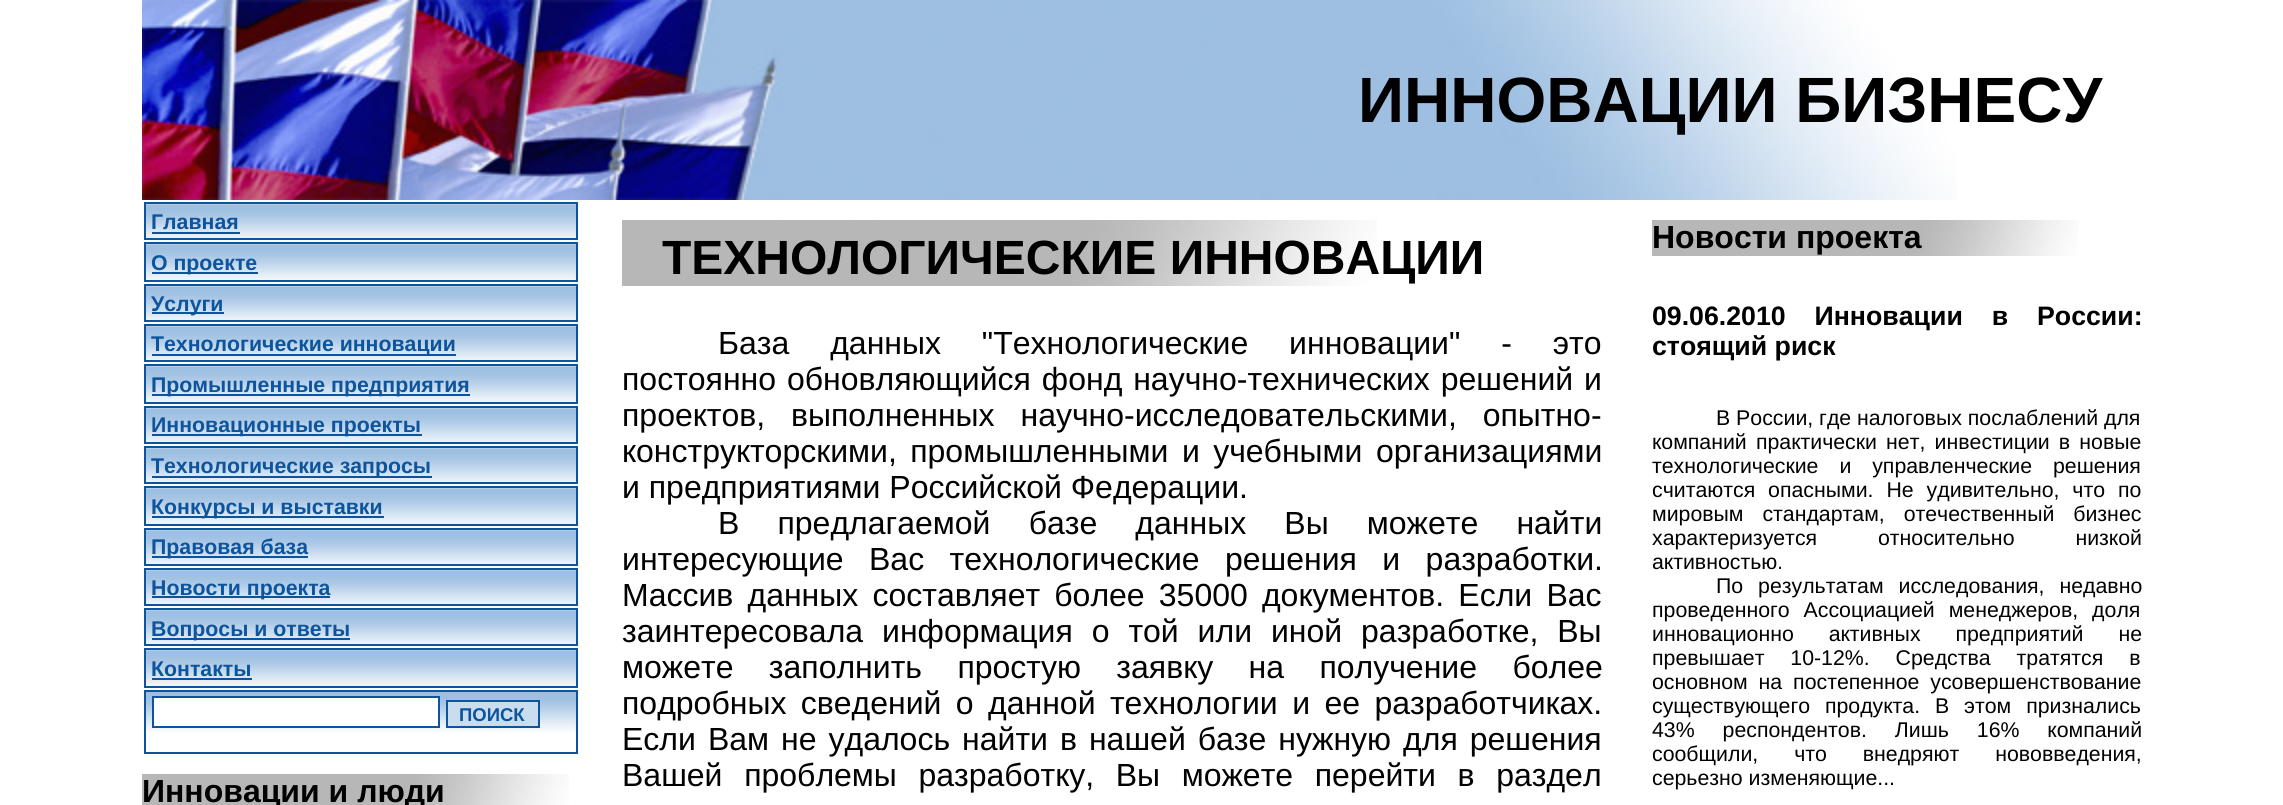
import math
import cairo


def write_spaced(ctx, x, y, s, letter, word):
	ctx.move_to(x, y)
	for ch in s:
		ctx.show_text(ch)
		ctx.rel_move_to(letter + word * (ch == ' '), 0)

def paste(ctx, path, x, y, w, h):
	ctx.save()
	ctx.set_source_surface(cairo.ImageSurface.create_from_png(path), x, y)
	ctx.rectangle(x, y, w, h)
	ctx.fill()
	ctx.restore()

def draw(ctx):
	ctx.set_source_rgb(1, 1, 1)
	ctx.paint()
	paste(ctx, 'media/1.png', 142, 0, 1815, 200)
	ctx.select_font_face('Liberation Sans', cairo.FONT_SLANT_NORMAL, cairo.FONT_WEIGHT_BOLD)
	ctx.set_font_size(64)
	ctx.set_source_rgb(0, 0, 0)
	ctx.move_to(1358, 122)
	ctx.show_text('ИННОВАЦИИ БИЗНЕСУ')
	paste(ctx, 'media/2.png', 146, 204, 430, 34)
	ctx.rectangle(145, 203, 432, 36)
	ctx.set_source_rgb(0.047, 0.329, 0.616)
	ctx.stroke()
	ctx.set_font_size(21.3)
	ctx.move_to(151, 229)
	ctx.show_text('Главная')
	ctx.rectangle(152, 232, 88, 2)
	ctx.fill()
	paste(ctx, 'media/3.png', 146, 244, 430, 36)
	ctx.rectangle(145, 243, 432, 38)
	ctx.stroke()
	ctx.rectangle(152, 272, 106, 2)
	ctx.fill()
	ctx.move_to(151, 270)
	ctx.show_text('О проекте')
	paste(ctx, 'media/2.png', 146, 286, 430, 34)
	ctx.rectangle(145, 285, 432, 36)
	ctx.stroke()
	ctx.rectangle(152, 312, 72, 2)
	ctx.fill()
	ctx.move_to(151, 311)
	ctx.show_text('Услуги')
	paste(ctx, 'media/2.png', 146, 326, 430, 34)
	ctx.rectangle(145, 325, 432, 36)
	ctx.stroke()
	ctx.rectangle(152, 354, 304, 2)
	ctx.fill()
	ctx.move_to(151, 351)
	ctx.show_text('Технологические инновации')
	paste(ctx, 'media/3.png', 146, 366, 430, 36)
	ctx.rectangle(145, 365, 432, 38)
	ctx.stroke()
	ctx.rectangle(152, 394, 318, 2)
	ctx.fill()
	ctx.move_to(151, 392)
	ctx.show_text('Промышленные предприятия')
	paste(ctx, 'media/2.png', 146, 408, 430, 34)
	ctx.rectangle(145, 407, 432, 36)
	ctx.stroke()
	ctx.rectangle(152, 434, 270, 2)
	ctx.fill()
	ctx.move_to(151, 432)
	ctx.show_text('Инновационные проекты')
	paste(ctx, 'media/2.png', 146, 448, 430, 34)
	ctx.rectangle(145, 447, 432, 36)
	ctx.stroke()
	ctx.rectangle(152, 476, 280, 2)
	ctx.fill()
	ctx.move_to(151, 473)
	ctx.show_text('Технологические запросы')
	paste(ctx, 'media/3.png', 146, 488, 430, 36)
	ctx.rectangle(145, 487, 432, 38)
	ctx.stroke()
	ctx.rectangle(152, 516, 232, 2)
	ctx.fill()
	ctx.move_to(151, 514)
	ctx.show_text('Конкурсы и выставки')
	paste(ctx, 'media/2.png', 146, 530, 430, 34)
	ctx.rectangle(145, 529, 432, 36)
	ctx.stroke()
	ctx.rectangle(152, 556, 156, 2)
	ctx.fill()
	ctx.move_to(151, 554)
	ctx.show_text('Правовая база')
	paste(ctx, 'media/2.png', 146, 570, 430, 34)
	ctx.rectangle(145, 569, 432, 36)
	ctx.stroke()
	ctx.rectangle(152, 596, 178, 2)
	ctx.fill()
	ctx.move_to(151, 595)
	ctx.show_text('Новости проекта')
	paste(ctx, 'media/2.png', 146, 610, 430, 34)
	ctx.rectangle(145, 609, 432, 36)
	ctx.stroke()
	ctx.rectangle(152, 638, 198, 2)
	ctx.fill()
	ctx.move_to(151, 636)
	ctx.show_text('Вопросы и ответы')
	paste(ctx, 'media/3.png', 146, 650, 430, 36)
	ctx.rectangle(145, 649, 432, 38)
	ctx.stroke()
	ctx.move_to(151, 676)
	ctx.show_text('Контакты')
	ctx.rectangle(152, 678, 100, 2)
	ctx.fill()
	paste(ctx, 'media/4.png', 146, 692, 430, 40)
	ctx.rectangle(145, 691, 432, 62)
	ctx.stroke()
	ctx.set_source_rgb(1, 1, 1)
	ctx.rectangle(153, 697, 286, 30)
	ctx.fill_preserve()
	ctx.set_source_rgb(0.047, 0.329, 0.616)
	ctx.stroke()
	ctx.set_source_rgb(0.792, 0.867, 0.937)
	ctx.rectangle(447, 701, 92, 26)
	ctx.fill_preserve()
	ctx.set_source_rgb(0.047, 0.329, 0.616)
	ctx.stroke()
	ctx.set_font_size(18.5)
	ctx.move_to(459, 721)
	ctx.show_text('ПОИСК')
	paste(ctx, 'media/5.png', 142, 774, 427, 31)
	ctx.set_font_size(32)
	ctx.set_source_rgb(0, 0, 0)
	ctx.move_to(142, 802)
	ctx.show_text('Инновации и люди')
	paste(ctx, 'media/6.png', 622, 220, 755, 66)
	ctx.set_font_size(48)
	ctx.move_to(662, 274)
	ctx.show_text('ТЕХНОЛОГИЧЕСКИЕ ИННОВАЦИИ')
	ctx.select_font_face('Liberation Sans')
	ctx.set_font_size(32)
	write_spaced(ctx, 718, 354, 'База данных "Технологические инновации" - это', 0, 32)
	write_spaced(ctx, 622, 390, 'постоянно обновляющийся фонд научно-технических решений и', 0, 2)
	write_spaced(ctx, 622, 426, 'проектов, выполненных научно-исследовательскими, опытно-', 0, 17)
	write_spaced(ctx, 622, 462, 'конструкторскими, промышленными и учебными организациями', 0, 4.5)
	ctx.move_to(622, 498)
	ctx.show_text('и предприятиями Российской Федерации.')
	write_spaced(ctx, 718, 534, 'В предлагаемой базе данных Вы можете найти', 0, 29.25)
	write_spaced(ctx, 622, 570, 'интересующие Вас технологические решения и разработки.', 0, 16.5)
	write_spaced(ctx, 622, 606, 'Массив данных составляет более 35000 документов. Если Вас', 0, 5.25)
	write_spaced(ctx, 622, 642, 'заинтересовала информация о той или иной разработке, Вы', 0, 10)
	write_spaced(ctx, 622, 678, 'можете заполнить простую заявку на получение более', 0, 26.5)
	write_spaced(ctx, 622, 714, 'подробных сведений о данной технологии и ее разработчиках.', 0, 5.5)
	write_spaced(ctx, 622, 750, 'Если Вам не удалось найти в нашей базе нужную для решения', 0, 3.1)
	write_spaced(ctx, 622, 786, 'Вашей проблемы разработку, Вы можете перейти в раздел', 0, 12.75)
	paste(ctx, 'media/7.png', 1652, 220, 427, 36)
	ctx.select_font_face('Liberation Sans', cairo.FONT_SLANT_NORMAL, cairo.FONT_WEIGHT_BOLD)
	ctx.move_to(1652, 248)
	ctx.show_text('Новости проекта')
	ctx.set_font_size(26.7)
	write_spaced(ctx, 1652, 325, '09.06.2010 Инновации в России:', 0, 21.5)
	ctx.move_to(1652, 355)
	ctx.show_text('стоящий риск')
	ctx.select_font_face('Liberation Sans')
	ctx.set_font_size(21.3)
	ctx.move_to(1716, 425)
	ctx.show_text('В России, где налоговых послаблений для')
	write_spaced(ctx, 1652, 449, 'компаний практически нет, инвестиции в новые', 0, 3.25)
	write_spaced(ctx, 1652, 473, 'технологические и управленческие решения', 0, 15)
	write_spaced(ctx, 1652, 497, 'считаются опасными. Не удивительно, что по', 0, 7)
	write_spaced(ctx, 1652, 521, 'мировым стандартам, отечественный бизнес', 0, 13)
	write_spaced(ctx, 1652, 545, 'характеризуется относительно низкой', 0, 55)
	ctx.move_to(1652, 569)
	ctx.show_text('активностью.')
	write_spaced(ctx, 1716, 593, 'По результатам исследования, недавно', 0, 9)
	write_spaced(ctx, 1652, 617, 'проведенного Ассоциацией менеджеров, доля', 0, 8)
	write_spaced(ctx, 1652, 641, 'инновационно активных предприятий не', 0, 29)
	write_spaced(ctx, 1652, 665, 'превышает 10-12%. Средства тратятся в', 0, 20)
	write_spaced(ctx, 1652, 689, 'основном на постепенное усовершенствование', 0, 5)
	write_spaced(ctx, 1652, 713, 'существующего продукта. В этом признались', 0, 9)
	write_spaced(ctx, 1652, 737, '43% респондентов. Лишь 16% компаний', 0, 22)
	write_spaced(ctx, 1652, 761, 'сообщили, что внедряют нововведения,', 0, 30)
	ctx.move_to(1652, 785)
	ctx.show_text('серьезно изменяющие...')


surface = cairo.ImageSurface(cairo.FORMAT_RGB24, 2283, 805)
ctx = cairo.Context(surface)
options = cairo.FontOptions()
options.set_hint_metrics(cairo.HINT_METRICS_OFF)
options.set_hint_style(cairo.HINT_STYLE_NONE)
ctx.set_font_options(options)
ctx.set_miter_limit(4)
draw(ctx)
surface.write_to_png('image.png')
